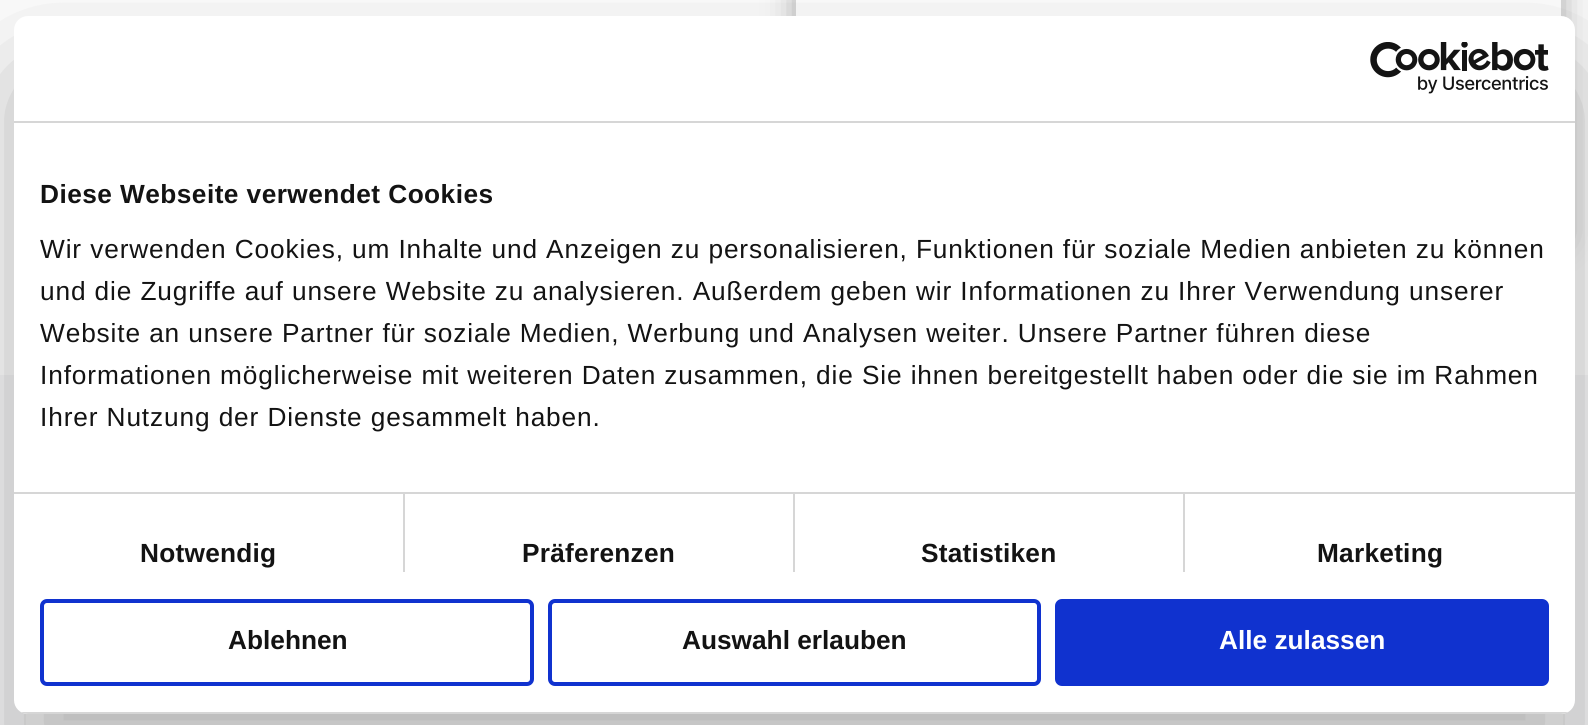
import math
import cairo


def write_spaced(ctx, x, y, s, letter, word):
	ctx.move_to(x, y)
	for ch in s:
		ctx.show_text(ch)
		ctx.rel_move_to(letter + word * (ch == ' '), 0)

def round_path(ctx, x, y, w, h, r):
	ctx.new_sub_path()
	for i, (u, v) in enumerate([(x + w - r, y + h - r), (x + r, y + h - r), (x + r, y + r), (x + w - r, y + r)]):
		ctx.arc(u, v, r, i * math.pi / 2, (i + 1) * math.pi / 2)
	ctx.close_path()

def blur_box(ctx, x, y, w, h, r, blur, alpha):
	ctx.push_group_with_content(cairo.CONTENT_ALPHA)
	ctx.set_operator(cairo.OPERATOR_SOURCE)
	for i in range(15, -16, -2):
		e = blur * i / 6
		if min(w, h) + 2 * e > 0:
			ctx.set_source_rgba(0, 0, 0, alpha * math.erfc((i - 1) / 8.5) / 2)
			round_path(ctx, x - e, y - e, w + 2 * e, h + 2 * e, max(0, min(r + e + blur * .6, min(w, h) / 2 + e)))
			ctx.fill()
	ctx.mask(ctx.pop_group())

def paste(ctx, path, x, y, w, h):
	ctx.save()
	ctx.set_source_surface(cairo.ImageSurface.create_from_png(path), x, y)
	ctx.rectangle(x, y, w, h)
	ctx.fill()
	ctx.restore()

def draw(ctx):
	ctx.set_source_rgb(1, 1, 1)
	ctx.paint()
	ctx.save()
	ctx.set_fill_rule(cairo.FILL_RULE_EVEN_ODD)
	ctx.new_path()
	ctx.move_to(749, 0)
	ctx.line_to(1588, 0)
	ctx.line_to(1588, 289)
	ctx.line_to(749, 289)
	ctx.close_path()
	ctx.move_to(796, -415)
	ctx.line_to(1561, -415)
	ctx.line_to(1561, 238)
	ctx.line_to(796, 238)
	ctx.close_path()
	ctx.clip()
	ctx.set_source_rgb(0, 0, 0)
	blur_box(ctx, 800, -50, 758, 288, 0, 16.5, 0.41)
	ctx.restore()
	ctx.set_source_rgb(0.965, 0.965, 0.969)
	ctx.rectangle(0, 375, 1588, 350)
	ctx.fill()
	ctx.set_source_rgb(1, 1, 1)
	ctx.rectangle(26, 713, 1537, 12)
	ctx.fill()
	ctx.set_source_rgb(0, 0, 0)
	blur_box(ctx, 14, 72, 1561, 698, 14, 59.5, 0.3)
	ctx.set_source_rgb(1, 1, 1)
	round_path(ctx, 14, 16, 1561, 698, 14)
	ctx.fill()
	ctx.set_source_rgb(0.839, 0.839, 0.839)
	ctx.rectangle(14, 121, 1561, 2)
	ctx.fill()
	paste(ctx, 'media/1.png', 1370, 42, 179, 52)
	ctx.rectangle(14, 492, 1561, 2)
	ctx.fill()
	ctx.select_font_face('Liberation Sans', cairo.FONT_SLANT_NORMAL, cairo.FONT_WEIGHT_BOLD)
	ctx.set_font_size(26.25)
	ctx.set_source_rgb(0.078, 0.078, 0.078)
	write_spaced(ctx, 40, 203, 'Diese Webseite verwendet Cookies', 0.45, 0)
	ctx.select_font_face('Liberation Sans')
	for x, y, s in [
		(40, 258, 'Wir verwenden Cookies, um Inhalte und Anzeigen zu personalisieren, Funktionen für soziale Medien anbieten zu können'),
		(40, 300, 'und die Zugriffe auf unsere Website zu analysieren. Außerdem geben wir Informationen zu Ihrer Verwendung unserer'),
		(40, 342, 'Website an unsere Partner für soziale Medien, Werbung und Analysen weiter. Unsere Partner führen diese'),
		(40, 384, 'Informationen möglicherweise mit weiteren Daten zusammen, die Sie ihnen bereitgestellt haben oder die sie im Rahmen'),
		(40, 426, 'Ihrer Nutzung der Dienste gesammelt haben.'),
	]:
		write_spaced(ctx, x, y, s, 0.88, 0)
	ctx.set_source_rgb(0.839, 0.839, 0.839)
	ctx.rectangle(403, 494, 2, 78)
	ctx.fill()
	ctx.select_font_face('Liberation Sans', cairo.FONT_SLANT_NORMAL, cairo.FONT_WEIGHT_BOLD)
	ctx.set_source_rgb(0.078, 0.078, 0.078)
	write_spaced(ctx, 140, 562, 'Notwendig', 0.25, 0)
	ctx.set_source_rgb(0.839, 0.839, 0.839)
	ctx.rectangle(793, 494, 2, 78)
	ctx.fill()
	ctx.set_source_rgb(0.078, 0.078, 0.078)
	write_spaced(ctx, 522, 562, 'Präferenzen', 0.25, 0)
	ctx.set_source_rgb(0.839, 0.839, 0.839)
	ctx.rectangle(1183, 494, 2, 78)
	ctx.fill()
	ctx.set_source_rgb(0.078, 0.078, 0.078)
	write_spaced(ctx, 921, 562, 'Statistiken', 0.25, 0)
	write_spaced(ctx, 1317, 562, 'Marketing', 0.25, 0)
	ctx.save()
	round_path(ctx, 14, 16, 1561, 698, 14)
	ctx.clip()
	ctx.set_source_rgb(0.839, 0.839, 0.839)
	ctx.rectangle(14, 712, 1561, 2)
	ctx.fill()
	ctx.restore()
	round_path(ctx, 42, 601, 490, 83, 5)
	ctx.set_source_rgb(0.063, 0.196, 0.812)
	ctx.set_line_width(4)
	ctx.stroke()
	ctx.set_source_rgb(0.078, 0.078, 0.078)
	ctx.move_to(228, 649)
	ctx.show_text('Ablehnen')
	round_path(ctx, 550, 601, 489, 83, 5)
	ctx.set_source_rgb(0.063, 0.196, 0.812)
	ctx.stroke()
	ctx.set_source_rgb(0.078, 0.078, 0.078)
	ctx.move_to(682, 649)
	ctx.show_text('Auswahl erlauben')
	ctx.set_source_rgb(0.063, 0.196, 0.812)
	round_path(ctx, 1057, 601, 490, 83, 5)
	ctx.fill_preserve()
	ctx.stroke()
	ctx.set_source_rgb(1, 1, 1)
	ctx.move_to(1219, 649)
	ctx.show_text('Alle zulassen')


surface = cairo.ImageSurface(cairo.FORMAT_RGB24, 1588, 725)
ctx = cairo.Context(surface)
options = cairo.FontOptions()
options.set_hint_metrics(cairo.HINT_METRICS_OFF)
options.set_hint_style(cairo.HINT_STYLE_NONE)
ctx.set_font_options(options)
ctx.set_miter_limit(4)
draw(ctx)
surface.write_to_png('image.png')
